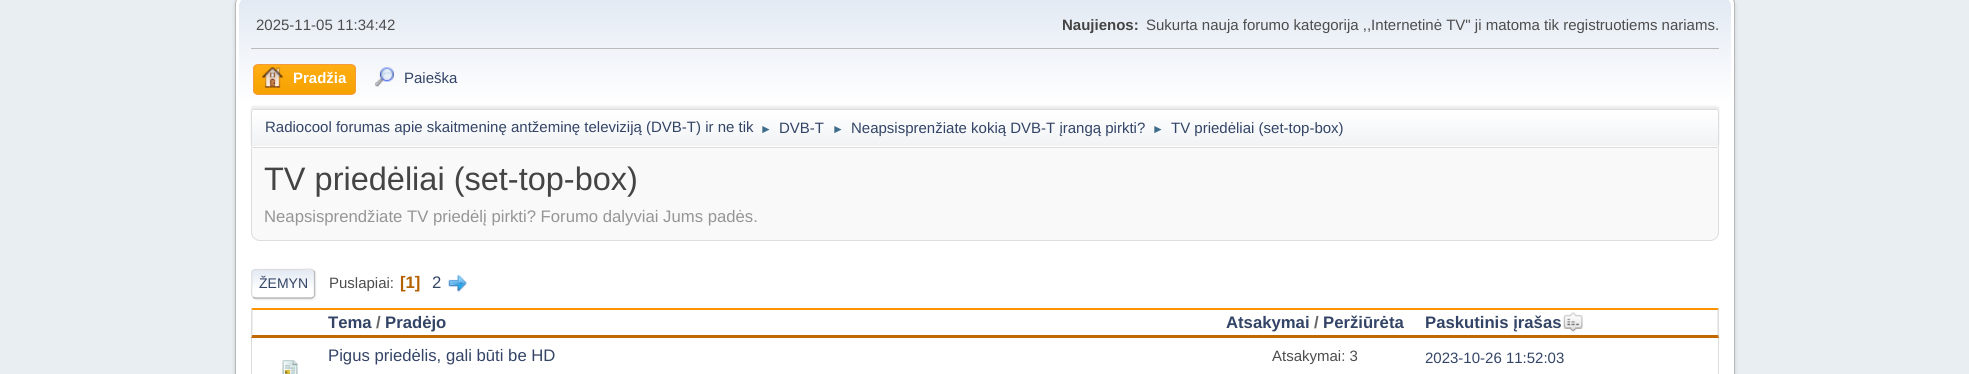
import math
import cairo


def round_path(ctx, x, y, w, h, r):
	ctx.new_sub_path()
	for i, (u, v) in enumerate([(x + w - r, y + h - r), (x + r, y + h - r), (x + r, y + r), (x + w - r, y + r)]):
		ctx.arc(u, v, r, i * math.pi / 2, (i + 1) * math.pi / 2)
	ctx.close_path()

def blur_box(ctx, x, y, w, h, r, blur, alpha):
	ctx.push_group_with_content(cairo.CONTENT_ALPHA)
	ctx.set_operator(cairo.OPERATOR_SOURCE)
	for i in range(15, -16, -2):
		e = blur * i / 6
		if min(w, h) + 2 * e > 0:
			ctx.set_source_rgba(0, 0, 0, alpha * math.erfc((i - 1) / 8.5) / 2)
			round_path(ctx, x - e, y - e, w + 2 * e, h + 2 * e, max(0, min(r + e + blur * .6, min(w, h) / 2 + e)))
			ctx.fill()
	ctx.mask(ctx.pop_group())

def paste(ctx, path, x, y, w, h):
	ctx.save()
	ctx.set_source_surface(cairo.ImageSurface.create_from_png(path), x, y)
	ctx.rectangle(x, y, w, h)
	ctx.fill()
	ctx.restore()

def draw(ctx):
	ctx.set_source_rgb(0.914, 0.933, 0.949)
	ctx.paint()
	ctx.set_source_rgb(0, 0, 0)
	blur_box(ctx, 235, -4, 1500, 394, 10, 2, 0.14)
	ctx.set_source_rgb(1, 1, 1)
	round_path(ctx, 235.5, -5.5, 1499, 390, 9.5)
	ctx.fill_preserve()
	ctx.set_source_rgb(0.722, 0.722, 0.722)
	ctx.set_line_width(1)
	ctx.stroke()
	gradient = cairo.LinearGradient(985, -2.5, 985, 150)
	gradient.add_color_stop_rgba(0, 0.886, 0.914, 0.953, 1)
	gradient.add_color_stop_rgba(0.7, 1, 1, 1, 1)
	ctx.set_source(gradient)
	ctx.new_path()
	ctx.move_to(247, -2)
	ctx.line_to(1723, -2)
	ctx.curve_to(1727.5, -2, 1731, 1.5, 1731, 6)
	ctx.line_to(1731, 150)
	ctx.line_to(239, 150)
	ctx.line_to(239, 6)
	ctx.curve_to(239, 1.5, 242.5, -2, 247, -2)
	ctx.close_path()
	ctx.fill()
	ctx.set_source_rgb(0.733, 0.733, 0.733)
	ctx.rectangle(251, 48, 1468, 1)
	ctx.fill()
	ctx.select_font_face('Liberation Sans')
	ctx.set_font_size(15)
	ctx.set_source_rgb(0.302, 0.302, 0.302)
	ctx.move_to(256, 30)
	ctx.show_text('2025-11-05 11:34:42')
	ctx.select_font_face('Liberation Sans', cairo.FONT_SLANT_NORMAL, cairo.FONT_WEIGHT_BOLD)
	ctx.set_source_rgb(0.267, 0.267, 0.267)
	ctx.move_to(1062, 30)
	ctx.show_text('Naujienos:')
	ctx.select_font_face('Liberation Sans')
	ctx.set_source_rgb(0.302, 0.302, 0.302)
	ctx.move_to(1146, 30)
	ctx.show_text('Sukurta nauja forumo kategorija ,,Internetinė TV" ji matoma tik registruotiems nariams.')
	ctx.save()
	round_path(ctx, 253, 64, 103, 31, 5)
	ctx.clip()
	gradient = cairo.LinearGradient(304, 65, 304, 94)
	gradient.add_color_stop_rgba(0, 1, 0.682, 0.078, 1)
	gradient.add_color_stop_rgba(1, 0.961, 0.631, 0, 1)
	ctx.set_source(gradient)
	ctx.rectangle(253, 65, 103, 29)
	ctx.fill()
	ctx.restore()
	round_path(ctx, 253.5, 64.5, 102, 30, 4.5)
	ctx.set_source_rgb(0.957, 0.604, 0.227)
	ctx.stroke()
	paste(ctx, 'media/1.png', 262, 67, 21, 21)
	ctx.select_font_face('Liberation Sans', cairo.FONT_SLANT_NORMAL, cairo.FONT_WEIGHT_BOLD)
	ctx.set_source_rgb(1, 1, 1)
	ctx.move_to(293, 83)
	ctx.show_text('Pradžia')
	paste(ctx, 'media/2.png', 374, 67, 20, 20)
	ctx.select_font_face('Liberation Sans')
	ctx.set_source_rgb(0.2, 0.267, 0.4)
	ctx.move_to(404, 83)
	ctx.show_text('Paieška')
	ctx.set_source_rgb(0, 0, 0)
	blur_box(ctx, 251, 106, 1468, 39, 2.5, 1, 0.08)
	ctx.set_source_rgb(1, 1, 1)
	round_path(ctx, 251, 109, 1468, 39, 2.5)
	ctx.fill()
	gradient = cairo.LinearGradient(985, 110, 985, 146)
	gradient.add_color_stop_rgba(0, 1, 1, 1, 1)
	gradient.add_color_stop_rgba(0.95, 0.945, 0.953, 0.961, 1)
	ctx.set_source(gradient)
	ctx.rectangle(251, 110, 1468, 36)
	ctx.fill()
	round_path(ctx, 251.5, 109.5, 1467, 38, 2)
	ctx.set_source_rgb(0.867, 0.867, 0.867)
	ctx.stroke()
	ctx.set_source_rgb(0.2, 0.267, 0.4)
	ctx.move_to(265, 132)
	ctx.show_text('Radiocool forumas apie skaitmeninę antžeminę televiziją (DVB-T) ir ne tik')
	ctx.set_font_size(12)
	ctx.set_source_rgb(0.247, 0.42, 0.549)
	ctx.move_to(760, 133)
	ctx.show_text('►')
	ctx.set_font_size(15)
	ctx.set_source_rgb(0.2, 0.267, 0.4)
	ctx.move_to(779, 133)
	ctx.show_text('DVB-T')
	ctx.set_font_size(12)
	ctx.set_source_rgb(0.247, 0.42, 0.549)
	ctx.move_to(832, 133)
	ctx.show_text('►')
	ctx.set_font_size(15)
	ctx.set_source_rgb(0.2, 0.267, 0.4)
	ctx.move_to(851, 133)
	ctx.show_text('Neapsisprenžiate kokią DVB-T įrangą pirkti?')
	ctx.set_font_size(12)
	ctx.set_source_rgb(0.247, 0.42, 0.549)
	ctx.move_to(1152, 133)
	ctx.show_text('►')
	ctx.set_font_size(15)
	ctx.set_source_rgb(0.2, 0.267, 0.4)
	ctx.move_to(1171, 133)
	ctx.show_text('TV priedėliai (set-top-box)')
	ctx.set_source_rgb(0.973, 0.973, 0.973)
	ctx.new_path()
	ctx.move_to(251, 148)
	ctx.line_to(1719, 148)
	ctx.line_to(1719, 232)
	ctx.curve_to(1719, 237, 1715, 241, 1710, 241)
	ctx.line_to(260, 241)
	ctx.curve_to(255, 241, 251, 237, 251, 232)
	ctx.close_path()
	ctx.fill()
	ctx.set_source_rgb(0.867, 0.867, 0.867)
	ctx.set_fill_rule(cairo.FILL_RULE_EVEN_ODD)
	ctx.new_path()
	ctx.move_to(251, 148)
	ctx.line_to(1719, 148)
	ctx.line_to(1719, 232)
	ctx.curve_to(1719, 237, 1715, 241, 1710, 241)
	ctx.line_to(260, 241)
	ctx.curve_to(255, 241, 251, 237, 251, 232)
	ctx.close_path()
	ctx.move_to(252, 148)
	ctx.line_to(1718, 148)
	ctx.line_to(1718, 232)
	ctx.curve_to(1718, 237, 1714, 240, 1710, 240)
	ctx.line_to(260, 240)
	ctx.curve_to(256, 240, 252, 237, 252, 232)
	ctx.close_path()
	ctx.fill()
	ctx.set_font_size(32.5)
	ctx.set_source_rgb(0.267, 0.267, 0.267)
	ctx.move_to(264, 190)
	ctx.show_text('TV priedėliai (set-top-box)')
	ctx.set_font_size(16.7)
	ctx.set_source_rgb(0.584, 0.584, 0.584)
	ctx.move_to(264, 222)
	ctx.show_text('Neapsisprendžiate TV priedėlį pirkti? Forumo dalyviai Jums padės.')
	ctx.set_source_rgb(0.867, 0.867, 0.867)
	blur_box(ctx, 253, 270, 63, 30, 4, 0.5, 0.57)
	ctx.set_source_rgb(1, 1, 1)
	round_path(ctx, 251, 269, 64, 30, 4)
	ctx.fill()
	ctx.save()
	ctx.set_fill_rule(cairo.FILL_RULE_WINDING)
	round_path(ctx, 251, 269, 64, 30, 4)
	ctx.clip()
	gradient = cairo.LinearGradient(283, 270, 283, 298)
	gradient.add_color_stop_rgba(0, 0.886, 0.914, 0.953, 1)
	gradient.add_color_stop_rgba(0.7, 1, 1, 1, 1)
	ctx.set_source(gradient)
	ctx.rectangle(251, 270, 64, 28)
	ctx.fill()
	gradient = cairo.LinearGradient(283, 298, 283, 325)
	gradient.add_color_stop_rgba(0, 0.886, 0.914, 0.953, 1)
	gradient.add_color_stop_rgba(0.7, 1, 1, 1, 1)
	ctx.set_source(gradient)
	ctx.rectangle(251, 298, 64, 1)
	ctx.fill()
	ctx.restore()
	ctx.new_path()
	ctx.move_to(313.5, 270.5)
	ctx.curve_to(314, 271, 314.5, 271.5, 314.5, 272.5)
	ctx.line_to(314.5, 295)
	ctx.curve_to(314.5, 296, 314, 296.5, 313.5, 297)
	ctx.set_source_rgb(0.733, 0.733, 0.733)
	ctx.set_line_width(1.2)
	ctx.stroke()
	ctx.new_path()
	ctx.move_to(313.5, 297)
	ctx.line_to(311.5, 298)
	ctx.line_to(254.5, 298)
	ctx.line_to(253, 297)
	ctx.set_source_rgb(0.667, 0.667, 0.667)
	ctx.stroke()
	ctx.new_path()
	ctx.move_to(253, 297)
	ctx.curve_to(250.5, 295, 252, 286.5, 252, 284)
	ctx.curve_to(252, 268, 249, 269.5, 264.5, 269.5)
	ctx.line_to(302, 269.5)
	ctx.curve_to(303, 269.5, 311, 268, 313.5, 270.5)
	ctx.set_source_rgb(0.867, 0.867, 0.867)
	ctx.stroke()
	ctx.set_font_size(14)
	ctx.set_source_rgb(0.2, 0.267, 0.4)
	ctx.move_to(259, 288)
	ctx.show_text('ŽEMYN')
	ctx.set_font_size(15)
	ctx.set_source_rgb(0.302, 0.302, 0.302)
	ctx.move_to(329, 288)
	ctx.show_text('Puslapiai:')
	ctx.select_font_face('Liberation Sans', cairo.FONT_SLANT_NORMAL, cairo.FONT_WEIGHT_BOLD)
	ctx.set_font_size(16.7)
	ctx.set_source_rgb(0.706, 0.38, 0)
	ctx.move_to(400, 288)
	ctx.show_text('[1]')
	ctx.select_font_face('Liberation Sans')
	ctx.set_source_rgb(0.2, 0.267, 0.4)
	ctx.move_to(432, 288)
	ctx.show_text('2')
	paste(ctx, 'media/3.png', 448, 274, 19, 18)
	ctx.set_source_rgb(1, 0.58, 0)
	ctx.set_fill_rule(cairo.FILL_RULE_WINDING)
	ctx.new_path()
	ctx.move_to(251, 308)
	ctx.line_to(1719, 308)
	ctx.line_to(1718, 310)
	ctx.line_to(252, 310)
	ctx.close_path()
	ctx.fill()
	ctx.set_source_rgb(0.867, 0.867, 0.867)
	ctx.new_path()
	ctx.move_to(1719, 307.5)
	ctx.line_to(1719, 337.5)
	ctx.line_to(1717.5, 335)
	ctx.line_to(1717.5, 310)
	ctx.close_path()
	ctx.fill()
	ctx.set_source_rgb(0.749, 0.412, 0)
	ctx.new_path()
	ctx.move_to(1719, 338)
	ctx.line_to(251, 338)
	ctx.line_to(252, 335)
	ctx.line_to(1718, 335)
	ctx.close_path()
	ctx.fill()
	ctx.set_source_rgb(0.867, 0.867, 0.867)
	ctx.new_path()
	ctx.move_to(251, 337.5)
	ctx.line_to(251, 307.5)
	ctx.line_to(252.5, 310)
	ctx.line_to(252.5, 335)
	ctx.close_path()
	ctx.fill()
	ctx.save()
	ctx.rectangle(328, 310, 877, 25)
	ctx.clip()
	ctx.select_font_face('Liberation Sans', cairo.FONT_SLANT_NORMAL, cairo.FONT_WEIGHT_BOLD)
	ctx.set_source_rgb(0.2, 0.267, 0.4)
	ctx.move_to(328, 328)
	ctx.show_text('Tema')
	ctx.restore()
	ctx.select_font_face('Liberation Sans', cairo.FONT_SLANT_NORMAL, cairo.FONT_WEIGHT_BOLD)
	ctx.set_source_rgb(0.4, 0.4, 0.4)
	ctx.move_to(376, 328)
	ctx.show_text('/')
	ctx.set_source_rgb(0.2, 0.267, 0.4)
	ctx.move_to(385, 328)
	ctx.show_text('Pradėjo')
	ctx.move_to(1226, 328)
	ctx.show_text('Atsakymai')
	ctx.set_source_rgb(0.4, 0.4, 0.4)
	ctx.move_to(1314, 328)
	ctx.show_text('/')
	ctx.set_source_rgb(0.2, 0.267, 0.4)
	ctx.move_to(1323, 328)
	ctx.show_text('Peržiūrėta')
	ctx.move_to(1425, 328)
	ctx.show_text('Paskutinis įrašas')
	paste(ctx, 'media/4.png', 1563, 312, 20, 20)
	ctx.set_source_rgb(0.863, 0.863, 0.863)
	ctx.new_path()
	ctx.move_to(1719, 338)
	ctx.line_to(1719, 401)
	ctx.line_to(1718, 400)
	ctx.line_to(1718, 338)
	ctx.close_path()
	ctx.fill()
	ctx.new_path()
	ctx.move_to(251, 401)
	ctx.line_to(251, 338)
	ctx.line_to(252, 338)
	ctx.line_to(252, 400)
	ctx.close_path()
	ctx.fill()
	ctx.select_font_face('Liberation Sans')
	ctx.set_source_rgb(0.2, 0.267, 0.4)
	ctx.move_to(328, 361)
	ctx.show_text('Pigus priedėlis, gali būti be HD')
	ctx.set_font_size(15)
	ctx.set_source_rgb(0.302, 0.302, 0.302)
	ctx.move_to(1272, 361)
	ctx.show_text('Atsakymai: 3')
	ctx.set_source_rgb(0.2, 0.267, 0.4)
	ctx.move_to(1425, 363)
	ctx.show_text('2023-10-26 11:52:03')
	paste(ctx, 'media/5.png', 282, 360, 16, 14)


surface = cairo.ImageSurface(cairo.FORMAT_RGB24, 1969, 374)
ctx = cairo.Context(surface)
options = cairo.FontOptions()
options.set_hint_metrics(cairo.HINT_METRICS_OFF)
options.set_hint_style(cairo.HINT_STYLE_NONE)
ctx.set_font_options(options)
ctx.set_miter_limit(4)
draw(ctx)
surface.write_to_png('image.png')
